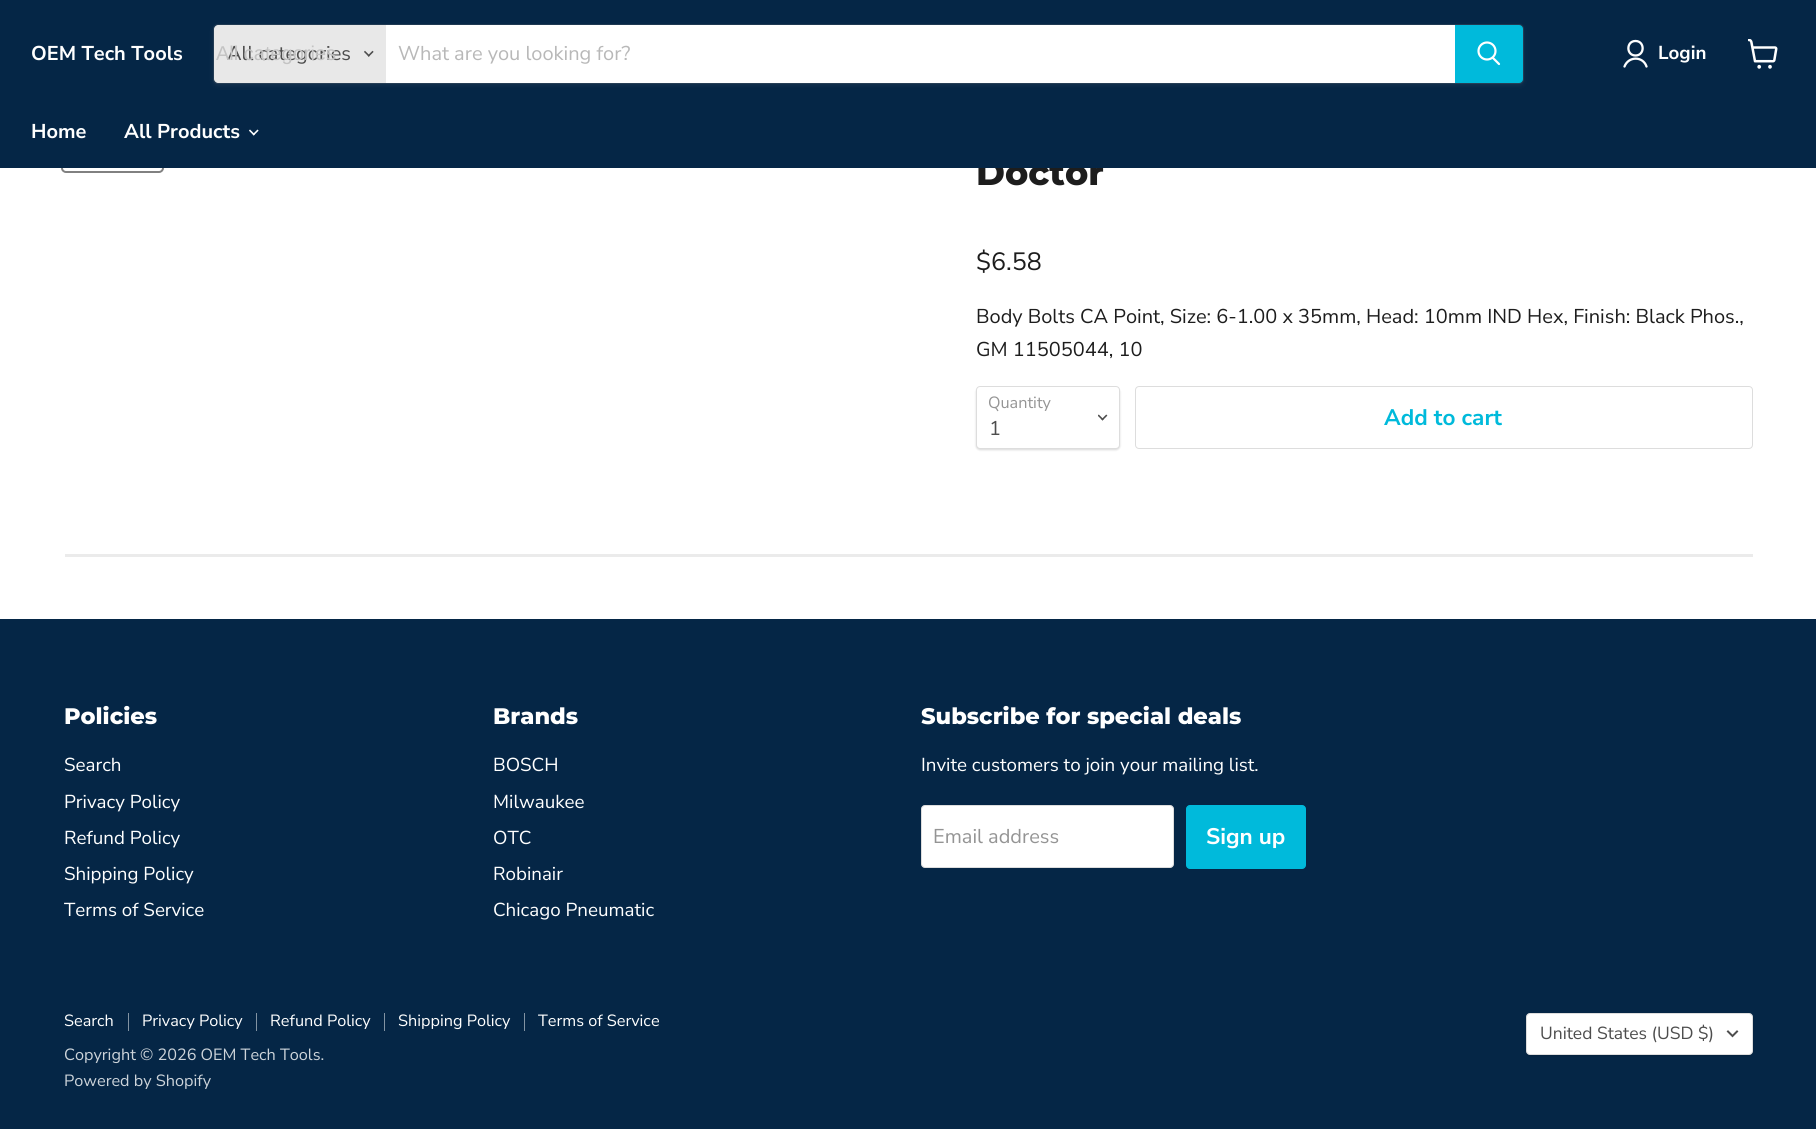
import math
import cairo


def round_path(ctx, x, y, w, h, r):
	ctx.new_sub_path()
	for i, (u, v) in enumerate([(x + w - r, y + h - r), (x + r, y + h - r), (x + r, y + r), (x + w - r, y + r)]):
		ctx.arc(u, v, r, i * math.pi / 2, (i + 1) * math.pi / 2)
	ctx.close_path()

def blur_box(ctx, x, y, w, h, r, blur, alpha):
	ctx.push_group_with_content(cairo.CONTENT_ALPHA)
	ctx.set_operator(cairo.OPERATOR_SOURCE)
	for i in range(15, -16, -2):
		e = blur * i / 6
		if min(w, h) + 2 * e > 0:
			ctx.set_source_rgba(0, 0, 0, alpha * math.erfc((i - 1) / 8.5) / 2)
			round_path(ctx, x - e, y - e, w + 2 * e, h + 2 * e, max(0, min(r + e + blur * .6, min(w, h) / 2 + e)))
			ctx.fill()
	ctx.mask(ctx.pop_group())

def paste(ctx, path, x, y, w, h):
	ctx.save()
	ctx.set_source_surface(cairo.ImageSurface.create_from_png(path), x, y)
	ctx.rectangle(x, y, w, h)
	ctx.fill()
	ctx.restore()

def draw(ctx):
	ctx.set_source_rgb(1, 1, 1)
	ctx.paint()
	round_path(ctx, 62, 71, 101, 101, 4)
	ctx.set_source_rgb(0.506, 0.506, 0.506)
	ctx.stroke()
	ctx.select_font_face('Montserrat ExtraBold')
	ctx.set_font_size(35)
	ctx.set_source_rgb(0.114, 0.114, 0.114)
	ctx.move_to(976, 185)
	ctx.show_text('Doctor')
	ctx.set_source_rgb(0.02, 0.149, 0.275)
	ctx.rectangle(0, 0, 1816, 168)
	ctx.fill()
	ctx.select_font_face('Nunito Sans', cairo.FONT_SLANT_NORMAL, cairo.FONT_WEIGHT_BOLD)
	ctx.set_font_size(20)
	ctx.set_source_rgb(1, 1, 1)
	ctx.move_to(31, 60)
	ctx.show_text('OEM Tech Tools')
	ctx.set_source_rgb(0.502, 0.502, 0.502)
	blur_box(ctx, 213, 26, 1311, 60, 5, 2, 0.11)
	round_path(ctx, 213.5, 24.5, 1310, 59, 4.5)
	ctx.set_source_rgba(0.502, 0.502, 0.502, 0.2)
	ctx.set_line_width(1)
	ctx.stroke()
	ctx.set_source_rgb(0.91, 0.91, 0.91)
	ctx.new_path()
	ctx.move_to(218, 25)
	ctx.line_to(386, 25)
	ctx.line_to(386, 83)
	ctx.line_to(218, 83)
	ctx.curve_to(216, 83, 214, 81, 214, 79)
	ctx.line_to(214, 29)
	ctx.curve_to(214, 27, 216, 25, 218, 25)
	ctx.close_path()
	ctx.fill()
	ctx.select_font_face('Nunito Sans')
	ctx.set_source_rgb(0.302, 0.302, 0.302)
	ctx.move_to(227, 60)
	ctx.show_text('All categories')
	ctx.select_font_face('Liberation Sans')
	ctx.set_source_rgb(0.765, 0.765, 0.765)
	ctx.move_to(216, 60)
	ctx.show_text('All categories')
	paste(ctx, 'media/1.png', 364, 50, 10, 7)
	ctx.set_source_rgb(1, 1, 1)
	ctx.rectangle(386, 25, 1069, 58)
	ctx.fill()
	ctx.select_font_face('Nunito Sans')
	ctx.set_source_rgb(0.722, 0.722, 0.722)
	ctx.move_to(398, 60)
	ctx.show_text('What are you looking for?')
	ctx.set_source_rgb(0, 0.729, 0.859)
	ctx.new_path()
	ctx.move_to(1455.5, 25.5)
	ctx.line_to(1519, 25.5)
	ctx.curve_to(1521, 25.5, 1522.5, 27, 1522.5, 29)
	ctx.line_to(1522.5, 79)
	ctx.curve_to(1522.5, 81, 1521, 82.5, 1519, 82.5)
	ctx.line_to(1455.5, 82.5)
	ctx.close_path()
	ctx.fill_preserve()
	ctx.stroke()
	ctx.new_path()
	ctx.move_to(1499, 64)
	ctx.line_to(1493, 58)
	ctx.set_source_rgb(1, 1, 1)
	ctx.set_line_width(2.2)
	ctx.set_line_cap(cairo.LINE_CAP_ROUND)
	ctx.stroke()
	ctx.arc(1487, 51, 8.5, 0, 2 * math.pi)
	ctx.set_line_cap(cairo.LINE_CAP_BUTT)
	ctx.stroke()
	ctx.new_path()
	ctx.move_to(1635.5, 55.5)
	ctx.curve_to(1645, 55.5, 1645, 41, 1635.5, 41)
	ctx.curve_to(1626, 41, 1626, 55.5, 1635.5, 55.5)
	ctx.close_path()
	ctx.move_to(1646.5, 66.5)
	ctx.curve_to(1643, 56, 1628.5, 56, 1624.5, 66.5)
	ctx.set_line_width(2.3)
	ctx.set_line_cap(cairo.LINE_CAP_ROUND)
	ctx.set_line_join(cairo.LINE_JOIN_ROUND)
	ctx.stroke()
	ctx.select_font_face('Nunito Sans', cairo.FONT_SLANT_NORMAL, cairo.FONT_WEIGHT_BOLD)
	ctx.set_font_size(18.75)
	ctx.move_to(1658, 59)
	ctx.show_text('Login')
	paste(ctx, 'media/2.png', 1748, 39, 30, 30)
	ctx.set_font_size(20)
	ctx.move_to(31, 138)
	ctx.show_text('Home')
	ctx.move_to(124, 138)
	ctx.show_text('All Products')
	paste(ctx, 'media/3.png', 249, 129, 10, 7)
	ctx.select_font_face('Nunito Sans')
	ctx.set_font_size(25)
	ctx.set_source_rgb(0.114, 0.114, 0.114)
	ctx.move_to(976, 270)
	ctx.show_text('$6.58')
	ctx.set_font_size(20)
	ctx.move_to(976, 323)
	ctx.show_text('Body Bolts CA Point, Size: 6-1.00 x 35mm, Head: 10mm IND Hex, Finish: Black Phos.,')
	ctx.move_to(976, 356)
	ctx.show_text('GM 11505044, 10')
	ctx.set_source_rgb(0, 0, 0)
	blur_box(ctx, 976, 388, 144, 62, 4, 1, 0.15)
	ctx.set_source_rgb(1, 1, 1)
	round_path(ctx, 976.5, 386.5, 143, 62, 3.5)
	ctx.fill_preserve()
	ctx.set_source_rgb(0.867, 0.867, 0.867)
	ctx.set_line_width(1)
	ctx.set_line_cap(cairo.LINE_CAP_BUTT)
	ctx.set_line_join(cairo.LINE_JOIN_MITER)
	ctx.stroke()
	ctx.set_font_size(16.25)
	ctx.set_source_rgb(0.58, 0.58, 0.58)
	ctx.move_to(988, 408)
	ctx.show_text('Quantity')
	paste(ctx, 'media/4.png', 1098, 414, 10, 7)
	ctx.set_font_size(20)
	ctx.set_source_rgb(0.302, 0.302, 0.302)
	ctx.move_to(989, 435)
	ctx.show_text('1')
	round_path(ctx, 1135.5, 386.5, 617, 62, 3.5)
	ctx.set_source_rgb(0.867, 0.867, 0.867)
	ctx.stroke()
	ctx.select_font_face('Nunito Sans', cairo.FONT_SLANT_NORMAL, cairo.FONT_WEIGHT_BOLD)
	ctx.set_font_size(22.5)
	ctx.set_source_rgb(0, 0.729, 0.859)
	ctx.move_to(1384, 425)
	ctx.show_text('Add to cart')
	ctx.set_source_rgba(0.502, 0.502, 0.502, 0.16)
	ctx.rectangle(65, 554, 1688, 3)
	ctx.fill()
	ctx.set_source_rgb(0.02, 0.149, 0.275)
	ctx.rectangle(0, 619, 1816, 510)
	ctx.fill()
	ctx.select_font_face('Montserrat ExtraBold')
	ctx.set_source_rgb(1, 1, 1)
	ctx.move_to(64, 724)
	ctx.show_text('Policies')
	ctx.select_font_face('Nunito Sans')
	ctx.set_font_size(18.75)
	for x, y, s in [
		(64, 771, 'Search'),
		(64, 808, 'Privacy Policy'),
		(64, 844, 'Refund Policy'),
		(64, 880, 'Shipping Policy'),
		(64, 916, 'Terms of Service'),
	]:
		ctx.move_to(x, y)
		ctx.show_text(s)
	ctx.select_font_face('Montserrat ExtraBold')
	ctx.set_font_size(22.5)
	ctx.move_to(493, 724)
	ctx.show_text('Brands')
	ctx.select_font_face('Nunito Sans')
	ctx.set_font_size(18.75)
	for x, y, s in [
		(493, 771, 'BOSCH'),
		(493, 808, 'Milwaukee'),
		(493, 844, 'OTC'),
		(493, 880, 'Robinair'),
		(493, 916, 'Chicago Pneumatic'),
	]:
		ctx.move_to(x, y)
		ctx.show_text(s)
	ctx.select_font_face('Montserrat ExtraBold')
	ctx.set_font_size(22.5)
	ctx.move_to(921, 724)
	ctx.show_text('Subscribe for special deals')
	ctx.select_font_face('Nunito Sans')
	ctx.set_font_size(18.75)
	ctx.move_to(921, 771)
	ctx.show_text('Invite customers to join your mailing list.')
	round_path(ctx, 921.5, 805.5, 252, 62, 3.5)
	ctx.fill_preserve()
	ctx.set_source_rgb(0.867, 0.867, 0.867)
	ctx.stroke()
	ctx.set_font_size(20)
	ctx.set_source_rgb(0.58, 0.58, 0.58)
	ctx.move_to(933, 843)
	ctx.show_text('Email address')
	ctx.set_source_rgb(0, 0.729, 0.859)
	round_path(ctx, 1186.5, 805.5, 119, 63, 3.5)
	ctx.fill_preserve()
	ctx.stroke()
	ctx.select_font_face('Nunito Sans', cairo.FONT_SLANT_NORMAL, cairo.FONT_WEIGHT_BOLD)
	ctx.set_font_size(22.5)
	ctx.set_source_rgb(1, 1, 1)
	ctx.move_to(1206, 844)
	ctx.show_text('Sign up')
	ctx.set_source_rgb(0.51, 0.576, 0.639)
	ctx.rectangle(128, 1013, 1, 18)
	ctx.fill()
	ctx.select_font_face('Nunito Sans')
	ctx.set_font_size(16.25)
	ctx.set_source_rgb(1, 1, 1)
	ctx.move_to(64, 1026)
	ctx.show_text('Search')
	ctx.set_source_rgb(0.51, 0.576, 0.639)
	ctx.rectangle(256, 1013, 1, 18)
	ctx.fill()
	ctx.set_source_rgb(1, 1, 1)
	ctx.move_to(142, 1026)
	ctx.show_text('Privacy Policy')
	ctx.set_source_rgb(0.51, 0.576, 0.639)
	ctx.rectangle(384, 1013, 1, 18)
	ctx.fill()
	ctx.set_source_rgb(1, 1, 1)
	ctx.move_to(270, 1026)
	ctx.show_text('Refund Policy')
	ctx.set_source_rgb(0.51, 0.576, 0.639)
	ctx.rectangle(524, 1013, 1, 18)
	ctx.fill()
	ctx.set_source_rgb(1, 1, 1)
	ctx.move_to(398, 1026)
	ctx.show_text('Shipping Policy')
	ctx.move_to(538, 1026)
	ctx.show_text('Terms of Service')
	ctx.set_source_rgb(0.804, 0.831, 0.855)
	ctx.move_to(64, 1060)
	ctx.show_text('Copyright © 2026 OEM Tech Tools.')
	ctx.move_to(64, 1086)
	ctx.show_text('Powered by Shopify')
	ctx.set_source_rgb(0, 0, 0)
	blur_box(ctx, 1526, 1014, 227, 42, 4, 1, 0.15)
	ctx.set_source_rgb(1, 1, 1)
	round_path(ctx, 1526.5, 1013.5, 226, 41, 3.5)
	ctx.fill_preserve()
	ctx.set_source_rgb(0.867, 0.867, 0.867)
	ctx.stroke()
	ctx.set_font_size(17.5)
	ctx.set_source_rgb(0.302, 0.302, 0.302)
	ctx.move_to(1540, 1039)
	ctx.show_text('United States (USD $)')
	ctx.new_path()
	ctx.move_to(1732.5, 1036)
	ctx.line_to(1737, 1031.5)
	ctx.move_to(1732.5, 1036)
	ctx.line_to(1728, 1031.5)
	ctx.set_line_width(2)
	ctx.set_line_cap(cairo.LINE_CAP_SQUARE)
	ctx.stroke()


surface = cairo.ImageSurface(cairo.FORMAT_RGB24, 1816, 1129)
ctx = cairo.Context(surface)
options = cairo.FontOptions()
options.set_hint_metrics(cairo.HINT_METRICS_OFF)
options.set_hint_style(cairo.HINT_STYLE_NONE)
ctx.set_font_options(options)
ctx.set_miter_limit(4)
draw(ctx)
surface.write_to_png('image.png')
